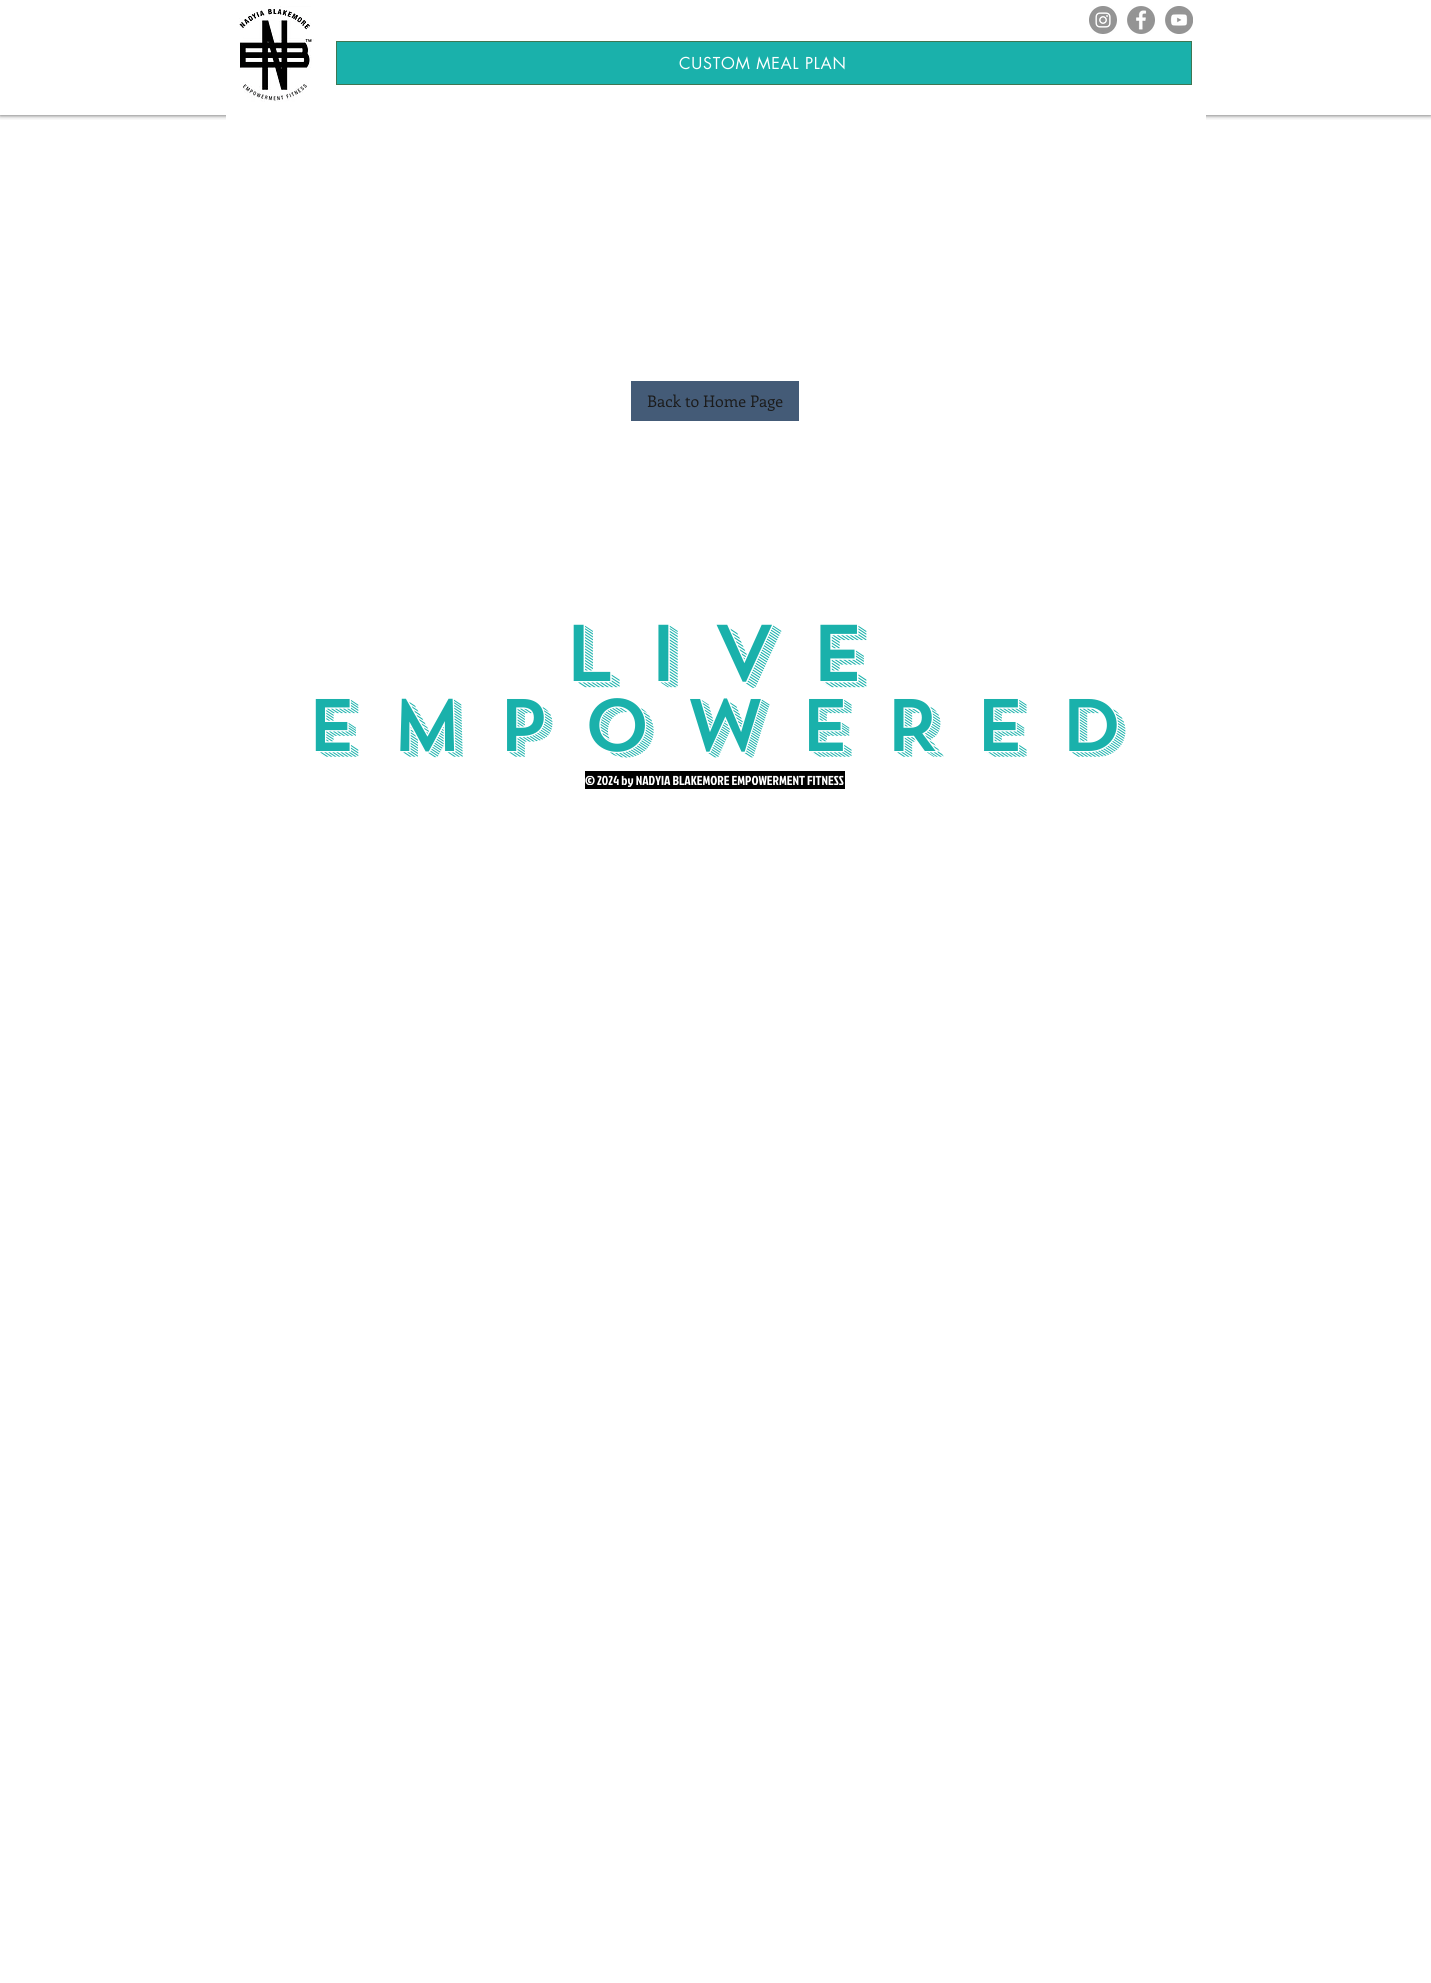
import math
import cairo


def write_spaced(ctx, x, y, s, letter, word):
	ctx.move_to(x, y)
	for ch in s:
		ctx.show_text(ch)
		ctx.rel_move_to(letter + word * (ch == ' '), 0)

def round_path(ctx, x, y, w, h, r):
	ctx.new_sub_path()
	for i, (u, v) in enumerate([(x + w - r, y + h - r), (x + r, y + h - r), (x + r, y + r), (x + w - r, y + r)]):
		ctx.arc(u, v, r, i * math.pi / 2, (i + 1) * math.pi / 2)
	ctx.close_path()

def blur_box(ctx, x, y, w, h, r, blur, alpha):
	ctx.push_group_with_content(cairo.CONTENT_ALPHA)
	ctx.set_operator(cairo.OPERATOR_SOURCE)
	for i in range(15, -16, -2):
		e = blur * i / 6
		if min(w, h) + 2 * e > 0:
			ctx.set_source_rgba(0, 0, 0, alpha * math.erfc((i - 1) / 8.5) / 2)
			round_path(ctx, x - e, y - e, w + 2 * e, h + 2 * e, max(0, min(r + e + blur * .6, min(w, h) / 2 + e)))
			ctx.fill()
	ctx.mask(ctx.pop_group())

def paste(ctx, path, x, y, w, h):
	ctx.save()
	ctx.set_source_surface(cairo.ImageSurface.create_from_png(path), x, y)
	ctx.rectangle(x, y, w, h)
	ctx.fill()
	ctx.restore()

def draw(ctx):
	ctx.set_source_rgb(1, 1, 1)
	ctx.paint()
	ctx.save()
	ctx.rectangle(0, 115, 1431, 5)
	ctx.clip()
	ctx.set_source_rgb(0, 0, 0)
	blur_box(ctx, 0, 0, 1431, 115, 0, 2.5, 0.7)
	ctx.restore()
	paste(ctx, 'media/1.png', 239, 6, 75, 96)
	paste(ctx, 'media/2.png', 1089, 6, 28, 28)
	paste(ctx, 'media/3.png', 1127, 6, 28, 28)
	paste(ctx, 'media/4.png', 1165, 6, 28, 28)
	ctx.set_source_rgb(0.102, 0.694, 0.671)
	ctx.rectangle(336.5, 41.5, 855, 43)
	ctx.fill_preserve()
	ctx.set_source_rgb(0.247, 0.463, 0.322)
	ctx.set_line_width(1)
	ctx.stroke()
	ctx.select_font_face('futura')
	ctx.set_font_size(16)
	ctx.set_source_rgb(1, 1, 1)
	write_spaced(ctx, 679, 69, 'CUSTOM MEAL PLAN', 0.75, 0)
	ctx.rectangle(226, 115, 980, 5)
	ctx.fill()
	ctx.set_source_rgb(0.267, 0.357, 0.467)
	ctx.rectangle(631, 381, 168, 40)
	ctx.fill()
	ctx.select_font_face('Enriqueta')
	ctx.set_source_rgb(0.106, 0.106, 0.106)
	ctx.move_to(647, 407)
	ctx.show_text('Back to Home Page')
	ctx.select_font_face('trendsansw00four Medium')
	ctx.set_font_size(80)
	ctx.set_source_rgb(0.102, 0.694, 0.671)
	write_spaced(ctx, 562, 681, 'LIVE', 32, 0)
	ctx.set_font_size(74)
	write_spaced(ctx, 305, 751, 'EMPOWERED', 32, 0)
	ctx.set_source_rgb(0, 0, 0)
	ctx.rectangle(585, 771, 260, 18)
	ctx.fill()
	ctx.select_font_face('Jockey One')
	ctx.set_font_size(13)
	ctx.set_source_rgb(1, 1, 1)
	ctx.move_to(585, 785)
	ctx.show_text('© 2024 by NADYIA BLAKEMORE EMPOWERMENT FITNESS')


surface = cairo.ImageSurface(cairo.FORMAT_RGB24, 1431, 1983)
ctx = cairo.Context(surface)
options = cairo.FontOptions()
options.set_hint_metrics(cairo.HINT_METRICS_OFF)
options.set_hint_style(cairo.HINT_STYLE_NONE)
ctx.set_font_options(options)
ctx.set_miter_limit(4)
draw(ctx)
surface.write_to_png('image.png')
